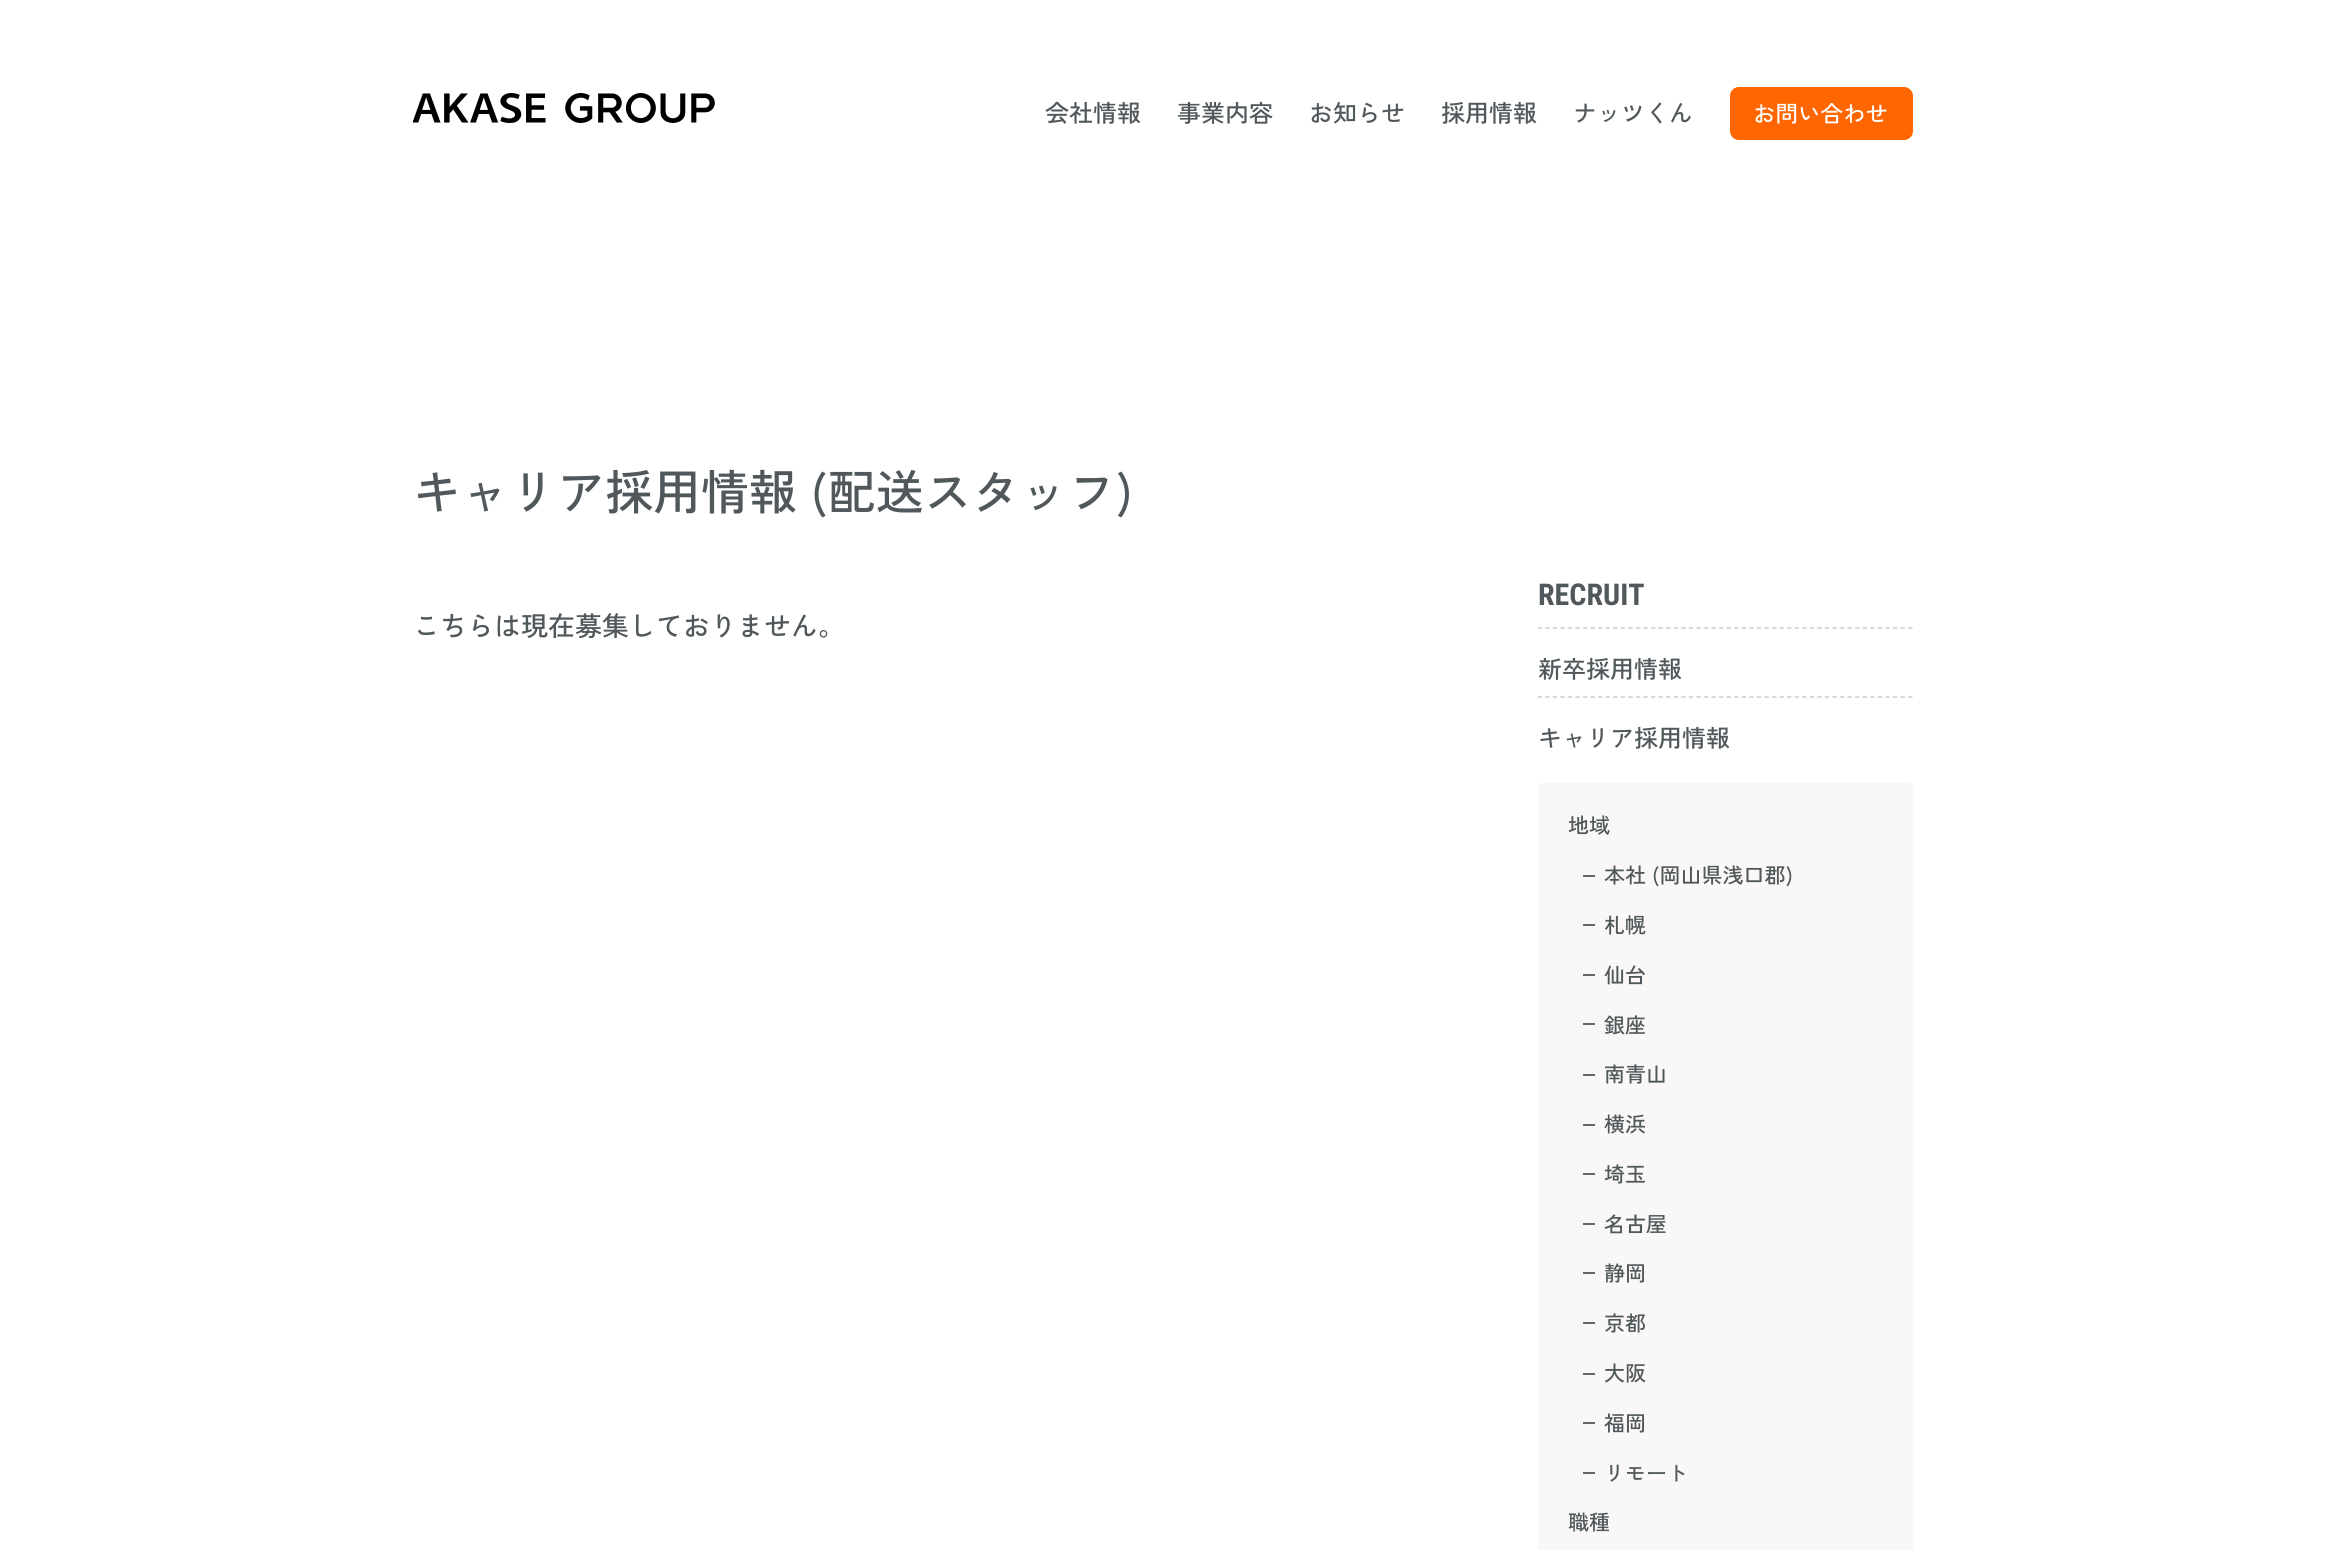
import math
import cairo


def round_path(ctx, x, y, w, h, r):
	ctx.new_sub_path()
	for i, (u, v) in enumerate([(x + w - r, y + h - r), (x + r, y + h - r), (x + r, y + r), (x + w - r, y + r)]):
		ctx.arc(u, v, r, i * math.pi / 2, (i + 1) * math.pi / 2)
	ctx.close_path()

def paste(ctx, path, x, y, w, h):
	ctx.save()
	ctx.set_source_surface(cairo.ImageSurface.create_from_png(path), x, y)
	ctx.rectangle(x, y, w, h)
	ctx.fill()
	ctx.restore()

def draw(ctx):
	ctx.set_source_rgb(1, 1, 1)
	ctx.paint()
	paste(ctx, 'media/1.png', 413, 93, 302, 30)
	ctx.select_font_face('Zen Kaku Gothic New Medium')
	ctx.set_font_size(24)
	ctx.set_source_rgb(0.318, 0.345, 0.357)
	for x, y, s in [
		(1045, 122, '会社情報'),
		(1177, 122, '事業内容'),
		(1309, 122, 'お知らせ'),
		(1441, 122, '採用情報'),
		(1573, 122, 'ナッツくん'),
	]:
		ctx.move_to(x, y)
		ctx.show_text(s)
	ctx.set_source_rgb(1, 0.4, 0)
	round_path(ctx, 1730, 87, 183, 53, 9)
	ctx.fill()
	ctx.set_font_size(22.5)
	ctx.set_source_rgb(1, 1, 1)
	ctx.move_to(1753, 122)
	ctx.show_text('お問い合わせ')
	ctx.set_font_size(48)
	ctx.set_source_rgb(0.318, 0.345, 0.357)
	ctx.move_to(413, 510)
	ctx.show_text('キャリア採用情報 (配送スタッフ)')
	ctx.set_font_size(27)
	ctx.move_to(413, 636)
	ctx.show_text('こちらは現在募集しておりません。')
	ctx.new_path()
	ctx.move_to(1537.5, 628)
	ctx.line_to(1912.5, 628)
	ctx.set_source_rgb(0.8, 0.8, 0.8)
	ctx.set_line_width(1.5)
	ctx.set_dash([4.5, 3.06])
	ctx.stroke()
	ctx.select_font_face('Roboto Condensed', cairo.FONT_SLANT_NORMAL, cairo.FONT_WEIGHT_BOLD)
	ctx.set_font_size(30)
	ctx.set_source_rgb(0.318, 0.345, 0.357)
	ctx.move_to(1538, 605)
	ctx.show_text('RECRUIT')
	ctx.new_path()
	ctx.move_to(1537.5, 697)
	ctx.line_to(1912.5, 697)
	ctx.set_source_rgb(0.8, 0.8, 0.8)
	ctx.stroke()
	ctx.select_font_face('Zen Kaku Gothic New Medium')
	ctx.set_font_size(24)
	ctx.set_source_rgb(0.318, 0.345, 0.357)
	ctx.move_to(1538, 678)
	ctx.show_text('新卒採用情報')
	ctx.move_to(1538, 747)
	ctx.show_text('キャリア採用情報')
	ctx.set_source_rgb(0.973, 0.969, 0.961)
	round_path(ctx, 1538, 783, 375, 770, 3)
	ctx.fill()
	ctx.set_font_size(21)
	ctx.set_source_rgb(0.318, 0.345, 0.357)
	ctx.move_to(1568, 833)
	ctx.show_text('地域')
	ctx.set_source_rgb(0.4, 0.4, 0.4)
	ctx.rectangle(1583, 875, 12, 2)
	ctx.fill()
	ctx.set_source_rgb(0.318, 0.345, 0.357)
	ctx.move_to(1604, 883)
	ctx.show_text('本社 (岡山県浅口郡)')
	ctx.set_source_rgb(0.4, 0.4, 0.4)
	ctx.rectangle(1583, 924, 12, 2)
	ctx.fill()
	ctx.set_source_rgb(0.318, 0.345, 0.357)
	ctx.move_to(1604, 933)
	ctx.show_text('札幌')
	ctx.set_source_rgb(0.4, 0.4, 0.4)
	ctx.rectangle(1583, 974, 12, 2)
	ctx.fill()
	ctx.set_source_rgb(0.318, 0.345, 0.357)
	ctx.move_to(1604, 983)
	ctx.show_text('仙台')
	ctx.set_source_rgb(0.4, 0.4, 0.4)
	ctx.rectangle(1583, 1023, 12, 2)
	ctx.fill()
	ctx.set_source_rgb(0.318, 0.345, 0.357)
	ctx.move_to(1604, 1033)
	ctx.show_text('銀座')
	ctx.set_source_rgb(0.4, 0.4, 0.4)
	ctx.rectangle(1583, 1074, 12, 2)
	ctx.fill()
	ctx.set_source_rgb(0.318, 0.345, 0.357)
	ctx.move_to(1604, 1082)
	ctx.show_text('南青山')
	ctx.set_source_rgb(0.4, 0.4, 0.4)
	ctx.rectangle(1583, 1124, 12, 2)
	ctx.fill()
	ctx.set_source_rgb(0.318, 0.345, 0.357)
	ctx.move_to(1604, 1132)
	ctx.show_text('横浜')
	ctx.set_source_rgb(0.4, 0.4, 0.4)
	ctx.rectangle(1583, 1173, 12, 2)
	ctx.fill()
	ctx.set_source_rgb(0.318, 0.345, 0.357)
	ctx.move_to(1604, 1182)
	ctx.show_text('埼玉')
	ctx.set_source_rgb(0.4, 0.4, 0.4)
	ctx.rectangle(1583, 1223, 12, 2)
	ctx.fill()
	ctx.set_source_rgb(0.318, 0.345, 0.357)
	ctx.move_to(1604, 1232)
	ctx.show_text('名古屋')
	ctx.set_source_rgb(0.4, 0.4, 0.4)
	ctx.rectangle(1583, 1272, 12, 2)
	ctx.fill()
	ctx.set_source_rgb(0.318, 0.345, 0.357)
	ctx.move_to(1604, 1281)
	ctx.show_text('静岡')
	ctx.set_source_rgb(0.4, 0.4, 0.4)
	ctx.rectangle(1583, 1322, 12, 2)
	ctx.fill()
	ctx.set_source_rgb(0.318, 0.345, 0.357)
	ctx.move_to(1604, 1331)
	ctx.show_text('京都')
	ctx.set_source_rgb(0.4, 0.4, 0.4)
	ctx.rectangle(1583, 1373, 12, 2)
	ctx.fill()
	ctx.set_source_rgb(0.318, 0.345, 0.357)
	ctx.move_to(1604, 1381)
	ctx.show_text('大阪')
	ctx.set_source_rgb(0.4, 0.4, 0.4)
	ctx.rectangle(1583, 1422, 12, 2)
	ctx.fill()
	ctx.set_source_rgb(0.318, 0.345, 0.357)
	ctx.move_to(1604, 1431)
	ctx.show_text('福岡')
	ctx.set_source_rgb(0.4, 0.4, 0.4)
	ctx.rectangle(1583, 1472, 12, 2)
	ctx.fill()
	ctx.set_source_rgb(0.318, 0.345, 0.357)
	ctx.move_to(1604, 1481)
	ctx.show_text('リモート')
	ctx.move_to(1568, 1530)
	ctx.show_text('職種')


surface = cairo.ImageSurface(cairo.FORMAT_RGB24, 2325, 1550)
ctx = cairo.Context(surface)
options = cairo.FontOptions()
options.set_hint_metrics(cairo.HINT_METRICS_OFF)
options.set_hint_style(cairo.HINT_STYLE_NONE)
ctx.set_font_options(options)
ctx.set_miter_limit(4)
draw(ctx)
surface.write_to_png('image.png')
